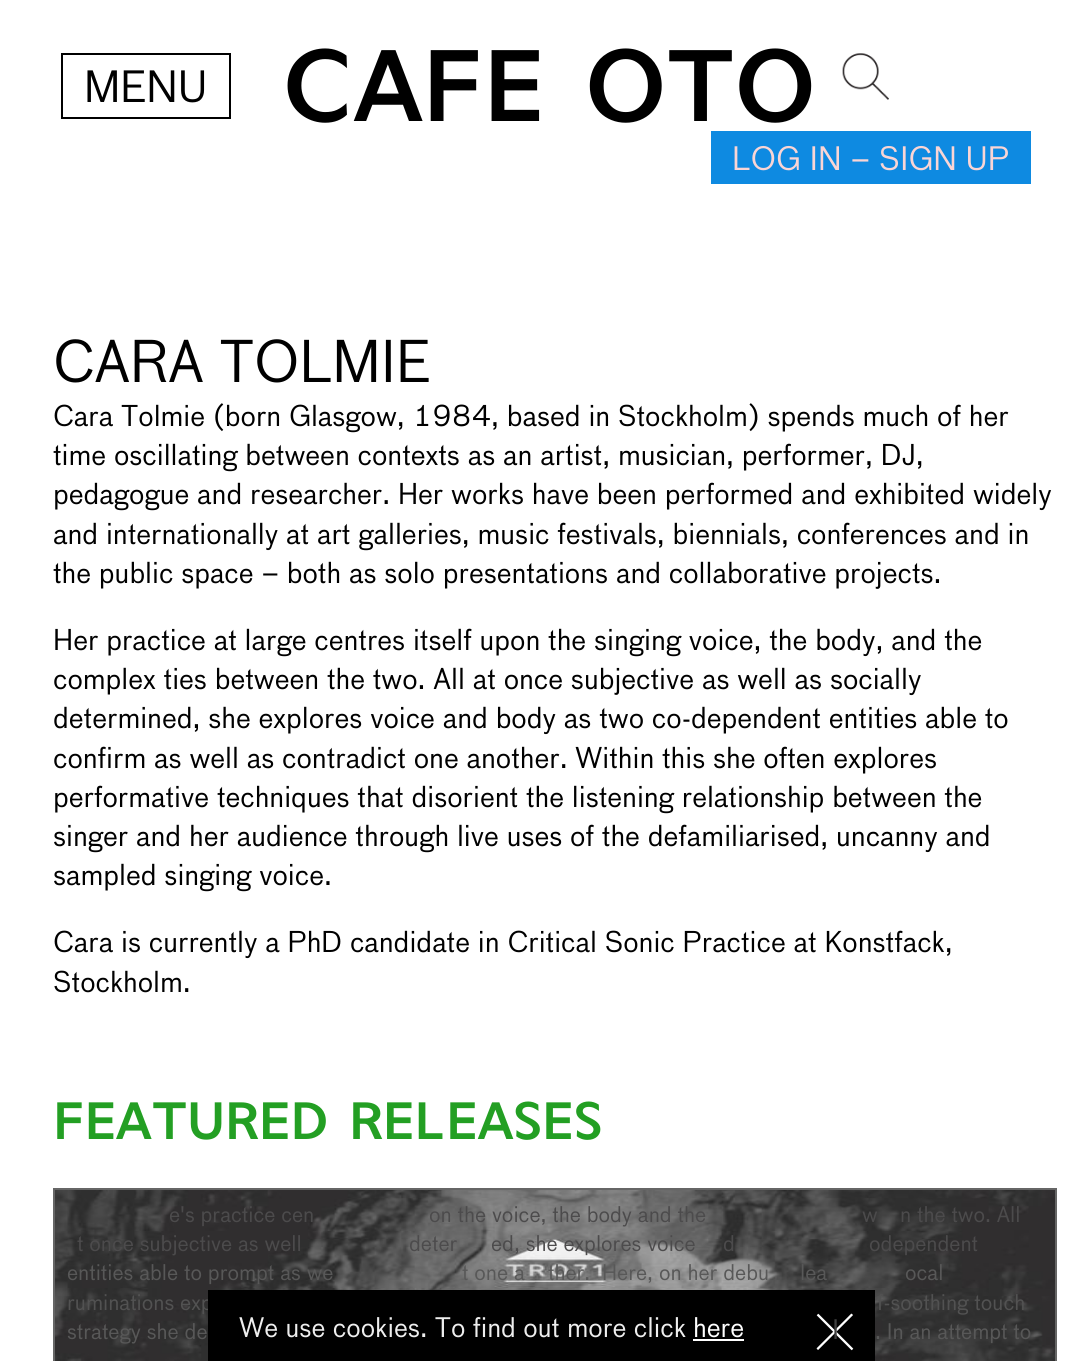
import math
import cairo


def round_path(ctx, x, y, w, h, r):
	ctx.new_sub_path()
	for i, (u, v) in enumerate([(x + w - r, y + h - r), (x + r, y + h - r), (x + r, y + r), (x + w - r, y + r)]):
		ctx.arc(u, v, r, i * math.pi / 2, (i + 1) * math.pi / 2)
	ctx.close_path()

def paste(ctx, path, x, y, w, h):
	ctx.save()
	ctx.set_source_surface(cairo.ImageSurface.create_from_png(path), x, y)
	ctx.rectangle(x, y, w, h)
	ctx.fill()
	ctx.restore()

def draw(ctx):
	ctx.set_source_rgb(1, 1, 1)
	ctx.paint()
	ctx.rectangle(62, 54, 168, 64)
	ctx.set_source_rgb(0, 0, 0)
	ctx.stroke()
	ctx.select_font_face('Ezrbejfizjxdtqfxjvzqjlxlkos')
	ctx.set_font_size(42)
	ctx.move_to(84, 102)
	ctx.show_text('MENU')
	ctx.select_font_face('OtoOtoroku')
	ctx.set_font_size(101.5)
	ctx.move_to(283, 121)
	ctx.show_text('CAFE OTO')
	paste(ctx, 'media/1.png', 842, 53, 47, 47)
	ctx.set_source_rgb(0.055, 0.541, 0.882)
	ctx.rectangle(711, 131, 320, 53)
	ctx.fill()
	ctx.select_font_face('Ezrbejfizjxdtqfxjvzqjlxlkos')
	ctx.set_font_size(31.5)
	ctx.set_source_rgb(0.98, 0.835, 0.835)
	ctx.move_to(732, 170)
	ctx.show_text('LOG IN – SIGN UP')
	ctx.set_font_size(56)
	ctx.set_source_rgb(0, 0, 0)
	ctx.move_to(53, 382)
	ctx.show_text('CARA TOLMIE')
	ctx.set_font_size(28)
	for x, y, s in [
		(53, 426, 'Cara Tolmie (born Glasgow, 1984, based in Stockholm) spends much of her'),
		(53, 465, 'time oscillating between contexts as an artist, musician, performer, DJ,'),
		(53, 504, 'pedagogue and researcher. Her works have been performed and exhibited widely'),
		(53, 544, 'and internationally at art galleries, music festivals, biennials, conferences and in'),
		(53, 583, 'the public space – both as solo presentations and collaborative projects.'),
		(53, 650, 'Her practice at large centres itself upon the singing voice, the body, and the'),
		(53, 689, 'complex ties between the two. All at once subjective as well as socially'),
		(53, 728, 'determined, she explores voice and body as two co-dependent entities able to'),
		(53, 768, 'confirm as well as contradict one another. Within this she often explores'),
		(53, 807, 'performative techniques that disorient the listening relationship between the'),
		(53, 846, 'singer and her audience through live uses of the defamiliarised, uncanny and'),
		(53, 885, 'sampled singing voice.'),
		(53, 952, 'Cara is currently a PhD candidate in Critical Sonic Practice at Konstfack,'),
		(53, 992, 'Stockholm.'),
	]:
		ctx.move_to(x, y)
		ctx.show_text(s)
	ctx.select_font_face('OtoOtoroku')
	ctx.set_font_size(52.5)
	ctx.set_source_rgb(0.137, 0.624, 0.137)
	ctx.move_to(53, 1139)
	ctx.show_text('FEATURED RELEASES')
	paste(ctx, 'media/2.png', 55, 1190, 1000, 171)
	ctx.rectangle(54, 1189, 1002, 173)
	ctx.set_source_rgb(0.4, 0.4, 0.4)
	ctx.stroke()
	ctx.select_font_face('Ezrbejfizjxdtqfxjvzqjlxlkos')
	ctx.set_font_size(21)
	ctx.set_source_rgb(0.298, 0.294, 0.298)
	for x, y, s in [
		(169, 1222, 'e\'s practice cen'),
		(429, 1222, 'on the voice, the body and the'),
		(862, 1222, 'w'),
		(900, 1222, 'n the two. All'),
		(77, 1251, 't once subjective as well'),
		(409, 1251, 'deter'),
		(491, 1251, 'ed, she explores voice'),
		(723, 1251, 'd'),
		(869, 1251, 'odependent'),
	]:
		ctx.move_to(x, y)
		ctx.show_text(s)
	ctx.set_source_rgb(0.345, 0.345, 0.345)
	for x, y, s in [
		(67, 1280, 'entities able to prompt as we'),
		(462, 1280, 't one a'),
		(548, 1280, 'ther.  Here, on her debu'),
		(800, 1280, 'lea'),
		(905, 1280, 'ocal'),
	]:
		ctx.move_to(x, y)
		ctx.show_text(s)
	ctx.set_source_rgb(0.322, 0.322, 0.322)
	ctx.move_to(67, 1310)
	ctx.show_text('ruminations exp')
	ctx.move_to(877, 1310)
	ctx.show_text('f-soothing touch')
	ctx.set_source_rgb(0.345, 0.345, 0.345)
	ctx.move_to(67, 1339)
	ctx.show_text('strategy she de')
	ctx.move_to(875, 1339)
	ctx.show_text('. In an attempt to')
	ctx.set_source_rgb(0, 0, 0)
	ctx.rectangle(208, 1290, 667, 71)
	ctx.fill()
	ctx.set_font_size(26.25)
	ctx.set_source_rgb(0.933, 0.933, 0.933)
	ctx.move_to(239, 1337)
	ctx.show_text('We use cookies. To find out more click')
	ctx.set_source_rgb(1, 1, 1)
	ctx.move_to(693, 1337)
	ctx.show_text('here')
	ctx.rectangle(693, 1339, 51, 2)
	ctx.fill()
	ctx.save()
	round_path(ctx, 816, 1313, 38, 38, 5)
	ctx.clip()
	ctx.new_path()
	ctx.move_to(816, 1313)
	ctx.line_to(853.5, 1350.5)
	ctx.move_to(853.5, 1313)
	ctx.line_to(816, 1350.5)
	ctx.set_line_width(2.3)
	ctx.stroke()
	ctx.restore()
	ctx.set_source_rgb(0.247, 0.247, 0.247)
	ctx.move_to(832, 1339)
	ctx.show_text('I')


surface = cairo.ImageSurface(cairo.FORMAT_RGB24, 1083, 1361)
ctx = cairo.Context(surface)
options = cairo.FontOptions()
options.set_hint_metrics(cairo.HINT_METRICS_OFF)
options.set_hint_style(cairo.HINT_STYLE_NONE)
ctx.set_font_options(options)
ctx.set_miter_limit(4)
draw(ctx)
surface.write_to_png('image.png')
